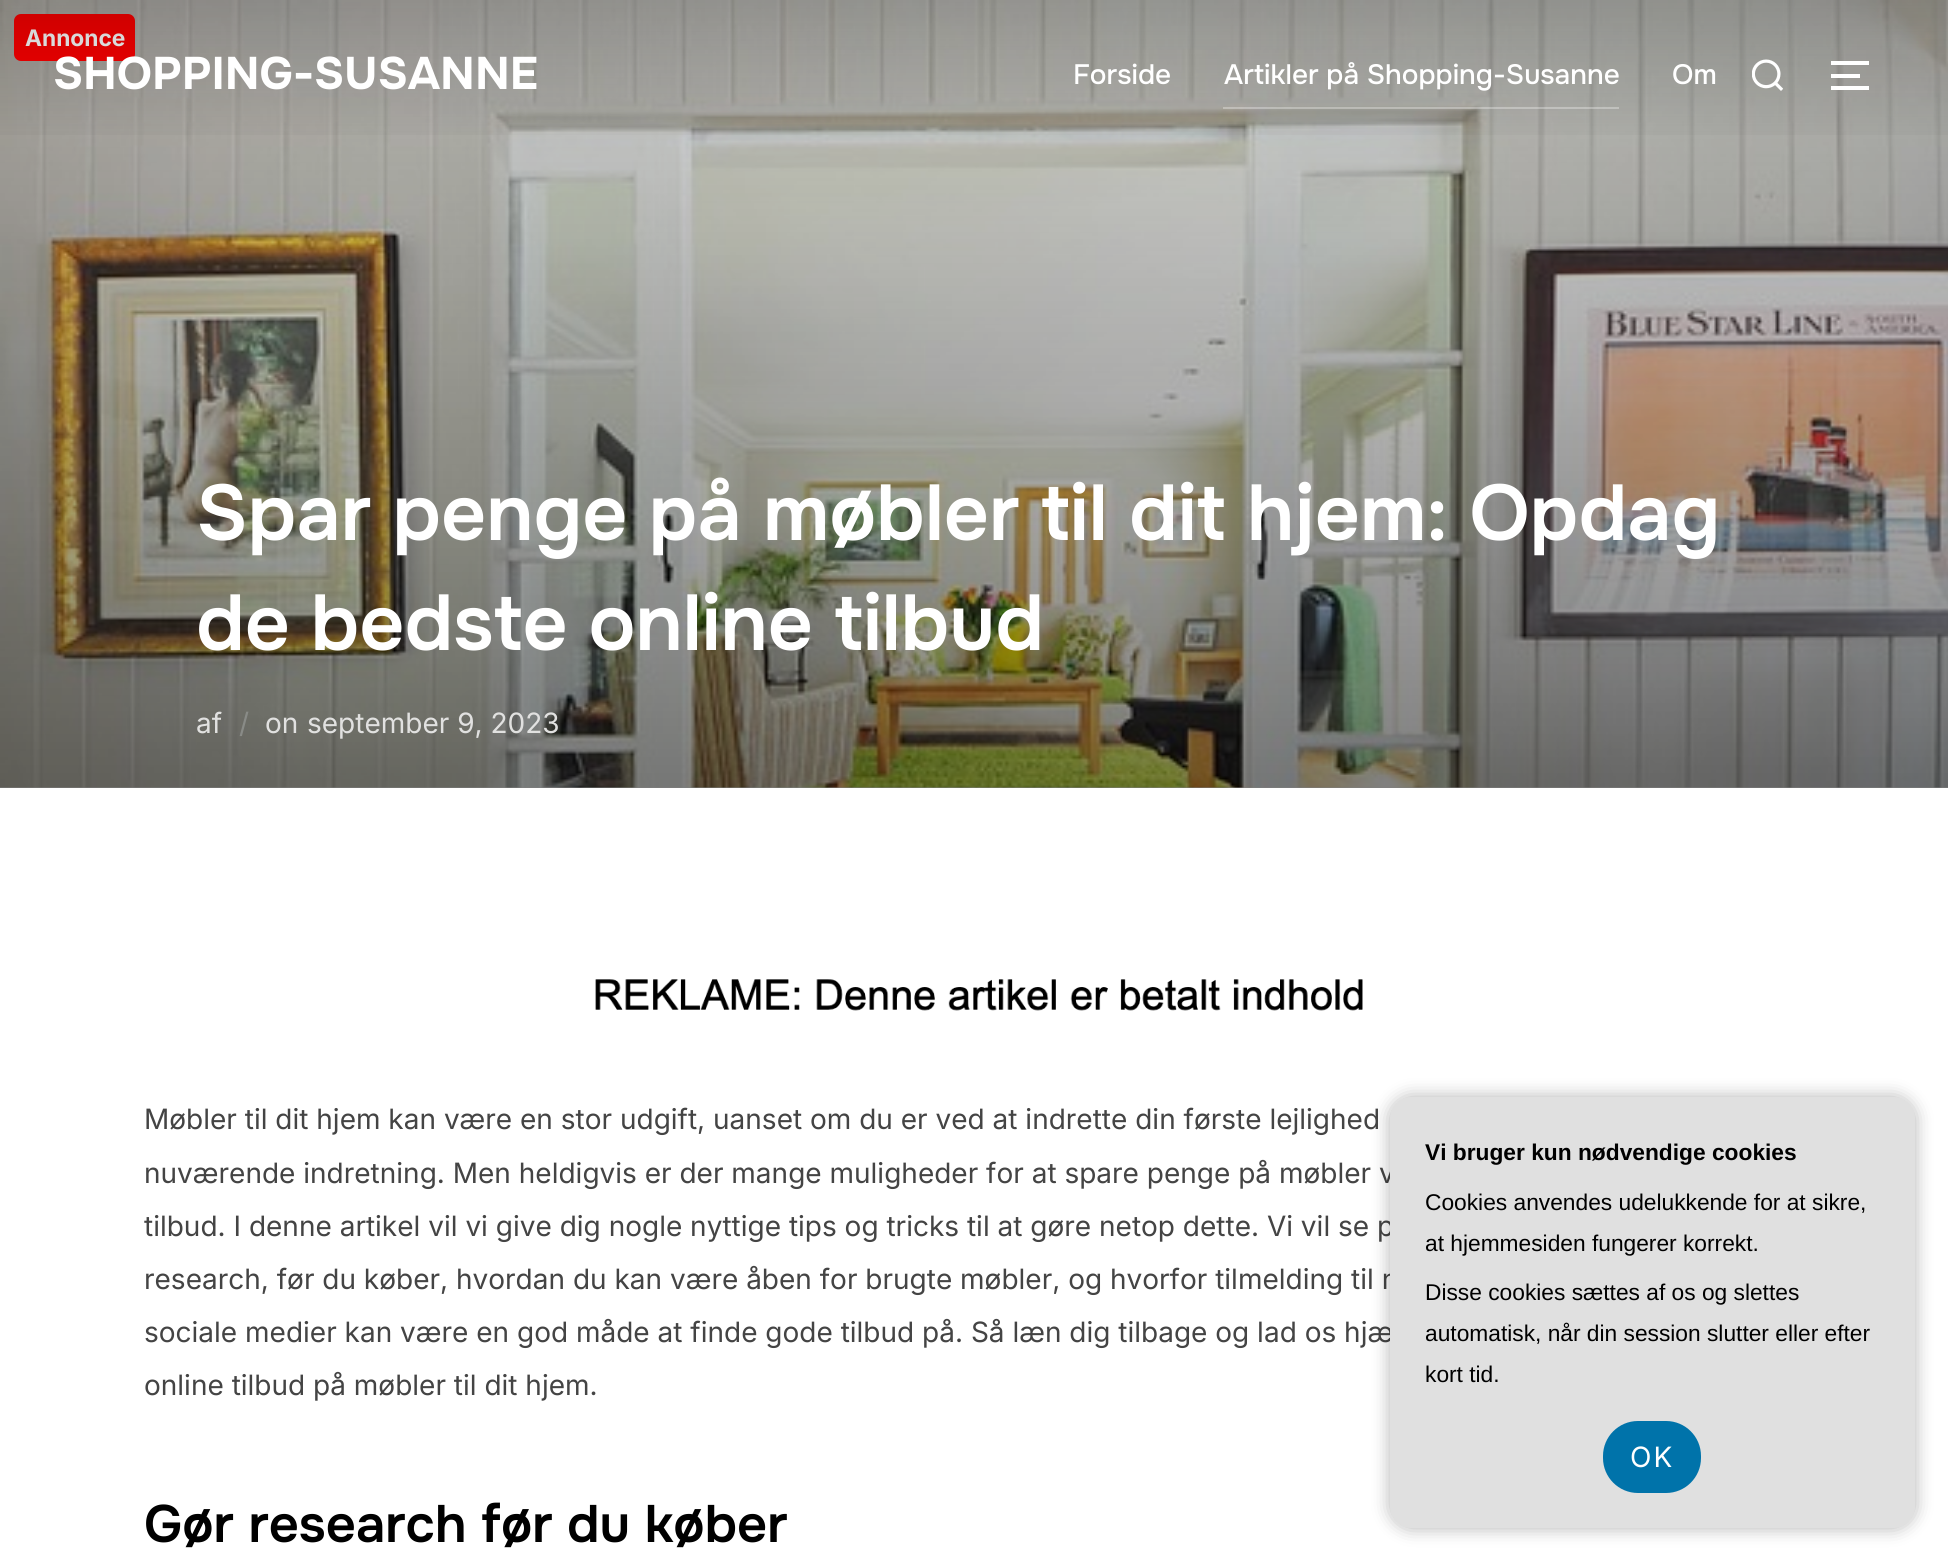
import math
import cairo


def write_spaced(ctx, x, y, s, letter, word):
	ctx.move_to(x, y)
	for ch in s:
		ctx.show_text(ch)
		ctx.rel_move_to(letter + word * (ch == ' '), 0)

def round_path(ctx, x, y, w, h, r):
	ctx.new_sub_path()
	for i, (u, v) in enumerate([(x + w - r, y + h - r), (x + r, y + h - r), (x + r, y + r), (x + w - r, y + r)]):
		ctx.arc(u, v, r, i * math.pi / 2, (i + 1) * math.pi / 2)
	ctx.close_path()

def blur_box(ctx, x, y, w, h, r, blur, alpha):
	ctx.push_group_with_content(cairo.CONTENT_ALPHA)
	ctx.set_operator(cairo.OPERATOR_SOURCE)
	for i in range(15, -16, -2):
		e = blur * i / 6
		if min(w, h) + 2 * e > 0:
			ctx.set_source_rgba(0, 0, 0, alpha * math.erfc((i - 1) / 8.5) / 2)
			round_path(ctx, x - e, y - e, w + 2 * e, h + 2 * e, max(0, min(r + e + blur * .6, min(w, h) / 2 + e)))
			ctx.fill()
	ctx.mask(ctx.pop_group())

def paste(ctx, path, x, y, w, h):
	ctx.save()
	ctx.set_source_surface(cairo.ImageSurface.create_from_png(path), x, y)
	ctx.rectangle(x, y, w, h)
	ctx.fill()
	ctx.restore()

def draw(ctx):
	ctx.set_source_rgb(1, 1, 1)
	ctx.paint()
	paste(ctx, 'media/1.png', 0, 0, 1948, 788)
	gradient = cairo.LinearGradient(975, 0, 975, 788)
	gradient.add_color_stop_rgba(0, 0, 0, 0, 0.1)
	gradient.add_color_stop_rgba(1, 0, 0, 0, 0.5)
	ctx.set_source(gradient)
	ctx.rectangle(0, 0, 1948, 788)
	ctx.fill()
	ctx.set_source_rgb(1, 0, 0)
	round_path(ctx, 14, 14, 121, 47, 7)
	ctx.fill()
	ctx.select_font_face('Inter', cairo.FONT_SLANT_NORMAL, cairo.FONT_WEIGHT_BOLD)
	ctx.set_font_size(22.75)
	ctx.set_source_rgb(1, 1, 1)
	ctx.move_to(25, 46)
	ctx.show_text('Annonce')
	ctx.select_font_face('Onest SemiBold')
	ctx.set_font_size(78.75)
	write_spaced(ctx, 196, 540, 'Spar penge på møbler til dit hjem: Opdag', 0, -0.5)
	write_spaced(ctx, 196, 650, 'de bedste online tilbud', 0, -1)
	ctx.select_font_face('Inter')
	ctx.set_font_size(28)
	ctx.set_source_rgb(0.882, 0.882, 0.878)
	ctx.move_to(196, 733)
	ctx.show_text('af')
	ctx.set_source_rgb(0.537, 0.545, 0.529)
	ctx.move_to(239, 733)
	ctx.show_text('/')
	ctx.set_source_rgb(0.882, 0.882, 0.878)
	ctx.move_to(265, 733)
	ctx.show_text('on')
	ctx.move_to(307, 733)
	ctx.show_text('september 9, 2023')
	paste(ctx, 'media/2.png', 595, 979, 768, 32)
	ctx.set_source_rgb(0.267, 0.267, 0.267)
	for x, y, s in [
		(144, 1129, 'Møbler til dit hjem kan være en stor udgift, uanset om du er ved at indrette din første lejlighed'),
		(144, 1183, 'nuværende indretning. Men heldigvis er der mange muligheder for at spare penge på møbler v'),
		(144, 1236, 'tilbud. I denne artikel vil vi give dig nogle nyttige tips og tricks til at gøre netop dette. Vi vil se p'),
		(144, 1289, 'research, før du køber, hvordan du kan være åben for brugte møbler, og hvorfor tilmelding til n'),
		(144, 1342, 'sociale medier kan være en god måde at finde gode tilbud på. Så læn dig tilbage og lad os hjæ'),
		(144, 1395, 'online tilbud på møbler til dit hjem.'),
	]:
		ctx.move_to(x, y)
		ctx.show_text(s)
	ctx.select_font_face('Onest SemiBold')
	ctx.set_font_size(52.5)
	ctx.set_source_rgb(0, 0, 0)
	ctx.move_to(144, 1542)
	ctx.show_text('Gør research før du køber')
	gradient = cairo.LinearGradient(975, 0, 975, 151)
	gradient.add_color_stop_rgba(0.01, 0, 0, 0, 0.2)
	gradient.add_color_stop_rgba(1, 0, 0, 0, 0)
	ctx.set_source(gradient)
	ctx.rectangle(0, 0, 1948, 135)
	ctx.fill()
	ctx.select_font_face('Onest', cairo.FONT_SLANT_NORMAL, cairo.FONT_WEIGHT_BOLD)
	ctx.set_font_size(45.5)
	ctx.set_source_rgb(1, 1, 1)
	ctx.move_to(53, 89)
	ctx.show_text('SHOPPING-SUSANNE')
	ctx.select_font_face('Onest Medium')
	ctx.set_font_size(28)
	ctx.move_to(1073, 84)
	ctx.show_text('Forside')
	ctx.set_source_rgba(1, 1, 1, 0.3)
	ctx.rectangle(1223, 107, 396, 2)
	ctx.fill()
	ctx.set_source_rgb(1, 1, 1)
	ctx.move_to(1224, 84)
	ctx.show_text('Artikler på Shopping-Susanne')
	ctx.move_to(1672, 84)
	ctx.show_text('Om')
	paste(ctx, 'media/3.png', 1752, 59, 31, 32)
	ctx.rectangle(1831, 61, 38, 4)
	ctx.rectangle(1831, 74, 29, 4)
	ctx.rectangle(1831, 86, 38, 4)
	ctx.fill()
	ctx.set_source_rgb(0, 0, 0)
	blur_box(ctx, 1390, 1097, 525, 431, 21, 9, 0.3)
	ctx.set_source_rgb(0.878, 0.878, 0.878)
	round_path(ctx, 1390, 1097, 525, 431, 21)
	ctx.fill()
	ctx.select_font_face('Liberation Sans', cairo.FONT_SLANT_NORMAL, cairo.FONT_WEIGHT_BOLD)
	ctx.set_font_size(22.75)
	ctx.set_source_rgb(0, 0, 0)
	ctx.move_to(1425, 1160)
	ctx.show_text('Vi bruger kun nødvendige cookies')
	ctx.select_font_face('Liberation Sans')
	for x, y, s in [
		(1425, 1210, 'Cookies anvendes udelukkende for at sikre,'),
		(1425, 1251, 'at hjemmesiden fungerer korrekt.'),
		(1425, 1300, 'Disse cookies sættes af os og slettes'),
		(1425, 1341, 'automatisk, når din session slutter eller efter'),
		(1425, 1382, 'kort tid.'),
	]:
		ctx.move_to(x, y)
		ctx.show_text(s)
	ctx.set_source_rgb(0, 0.451, 0.667)
	round_path(ctx, 1603, 1421, 98, 72, 35)
	ctx.fill()
	ctx.select_font_face('Inter')
	ctx.set_font_size(28)
	ctx.set_source_rgb(1, 1, 1)
	write_spaced(ctx, 1630, 1467, 'OK', 2, 0)


surface = cairo.ImageSurface(cairo.FORMAT_RGB24, 1948, 1562)
ctx = cairo.Context(surface)
options = cairo.FontOptions()
options.set_hint_metrics(cairo.HINT_METRICS_OFF)
options.set_hint_style(cairo.HINT_STYLE_NONE)
ctx.set_font_options(options)
ctx.set_miter_limit(4)
draw(ctx)
surface.write_to_png('image.png')
